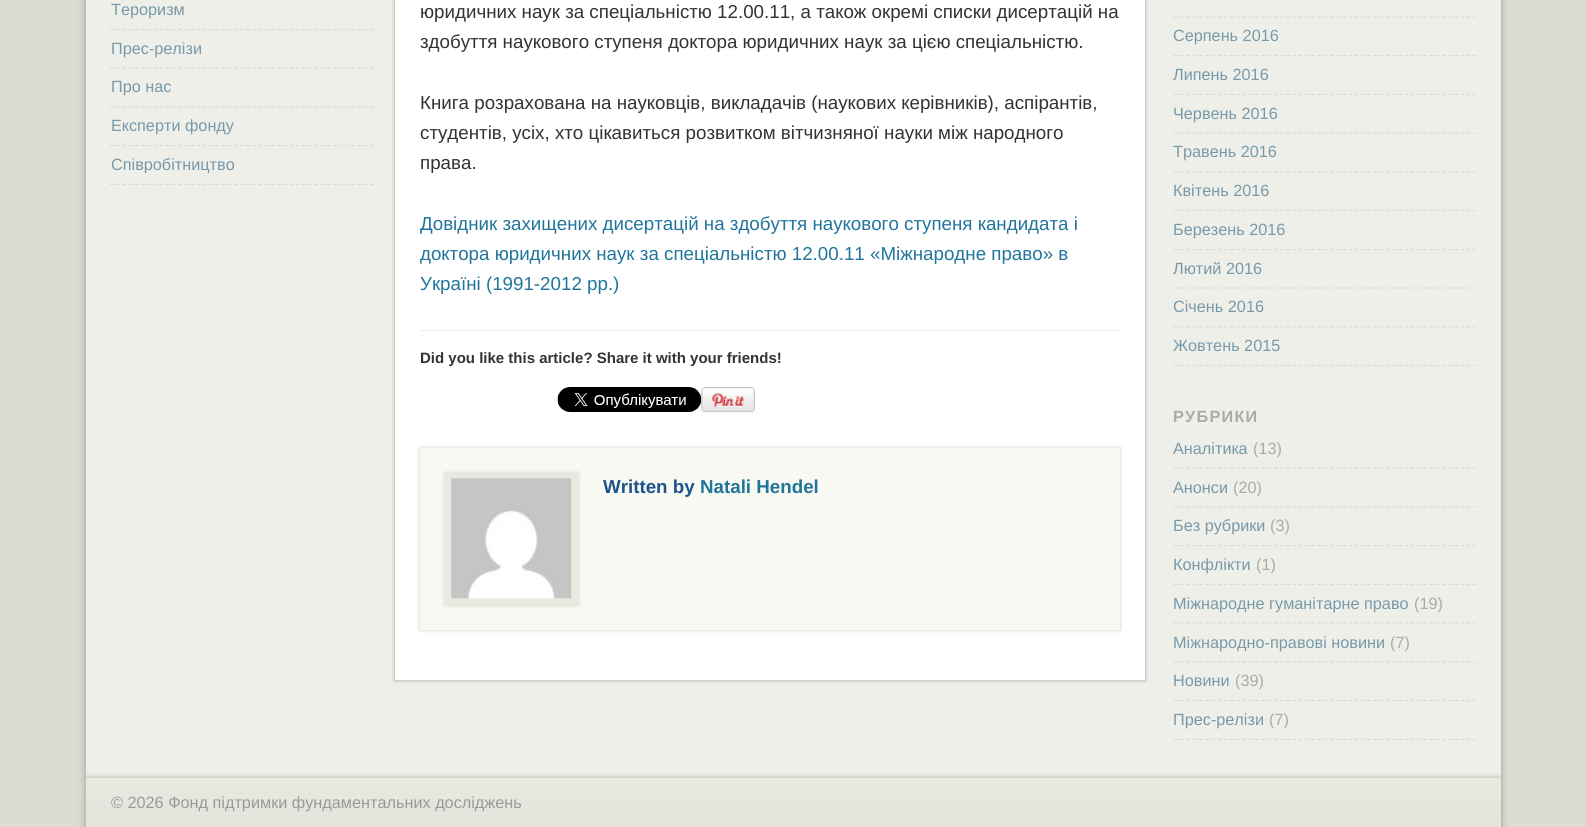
import math
import cairo


def write_spaced(ctx, x, y, s, letter, word):
	ctx.move_to(x, y)
	for ch in s:
		ctx.show_text(ch)
		ctx.rel_move_to(letter + word * (ch == ' '), 0)

def round_path(ctx, x, y, w, h, r):
	ctx.new_sub_path()
	for i, (u, v) in enumerate([(x + w - r, y + h - r), (x + r, y + h - r), (x + r, y + r), (x + w - r, y + r)]):
		ctx.arc(u, v, r, i * math.pi / 2, (i + 1) * math.pi / 2)
	ctx.close_path()

def blur_box(ctx, x, y, w, h, r, blur, alpha):
	ctx.push_group_with_content(cairo.CONTENT_ALPHA)
	ctx.set_operator(cairo.OPERATOR_SOURCE)
	for i in range(15, -16, -2):
		e = blur * i / 6
		if min(w, h) + 2 * e > 0:
			ctx.set_source_rgba(0, 0, 0, alpha * math.erfc((i - 1) / 8.5) / 2)
			round_path(ctx, x - e, y - e, w + 2 * e, h + 2 * e, max(0, min(r + e + blur * .6, min(w, h) / 2 + e)))
			ctx.fill()
	ctx.mask(ctx.pop_group())

def paste(ctx, path, x, y, w, h):
	ctx.save()
	ctx.set_source_surface(cairo.ImageSurface.create_from_png(path), x, y)
	ctx.rectangle(x, y, w, h)
	ctx.fill()
	ctx.restore()

def draw(ctx):
	ctx.set_source_rgb(0.863, 0.863, 0.816)
	ctx.paint()
	ctx.set_source_rgb(0.6, 0.6, 0.6)
	blur_box(ctx, 86, -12, 1415, 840, 0, 4, 1)
	ctx.set_source_rgb(0.937, 0.937, 0.914)
	ctx.rectangle(86, 0, 1415, 778)
	ctx.fill()
	ctx.new_path()
	ctx.move_to(110, 29.5)
	ctx.line_to(374, 29.5)
	ctx.set_source_rgb(0.851, 0.851, 0.851)
	ctx.set_line_width(1.2)
	ctx.set_dash([3.75, 2.44])
	ctx.stroke()
	ctx.select_font_face('Liberation Sans')
	ctx.set_font_size(16.25)
	ctx.set_source_rgb(0.467, 0.6, 0.667)
	ctx.move_to(111, 15)
	ctx.show_text('Тероризм')
	ctx.new_path()
	ctx.move_to(110, 68)
	ctx.line_to(374, 68)
	ctx.set_source_rgb(0.851, 0.851, 0.851)
	ctx.stroke()
	ctx.set_source_rgb(0.467, 0.6, 0.667)
	ctx.move_to(111, 54)
	ctx.show_text('Прес-релізи')
	ctx.new_path()
	ctx.move_to(110, 107)
	ctx.line_to(374, 107)
	ctx.set_source_rgb(0.851, 0.851, 0.851)
	ctx.stroke()
	ctx.set_source_rgb(0.467, 0.6, 0.667)
	ctx.move_to(111, 92)
	ctx.show_text('Про нас')
	ctx.new_path()
	ctx.move_to(110, 145.5)
	ctx.line_to(374, 145.5)
	ctx.set_source_rgb(0.851, 0.851, 0.851)
	ctx.stroke()
	ctx.set_source_rgb(0.467, 0.6, 0.667)
	ctx.move_to(111, 131)
	ctx.show_text('Експерти фонду')
	ctx.save()
	ctx.rectangle(110, 0, 264, 185)
	ctx.clip()
	ctx.new_path()
	ctx.move_to(110, 184.5)
	ctx.line_to(374, 184.5)
	ctx.set_source_rgb(0.851, 0.851, 0.851)
	ctx.stroke()
	ctx.restore()
	ctx.move_to(111, 170)
	ctx.show_text('Співробітництво')
	ctx.set_source_rgb(0.6, 0.6, 0.6)
	blur_box(ctx, 395, -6, 750, 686, 0, 2, 1)
	ctx.set_source_rgb(1, 1, 1)
	ctx.rectangle(395, 0, 750, 680)
	ctx.fill()
	ctx.set_font_size(18.75)
	ctx.set_source_rgb(0.2, 0.2, 0.2)
	for x, y, s in [
		(420, 18, 'юридичних наук за спеціальністю 12.00.11, а також окремі списки дисертацій на'),
		(420, 48, 'здобуття наукового ступеня доктора юридичних наук за цією спеціальністю.'),
		(420, 109, 'Книга розрахована на науковців, викладачів (наукових керівників), аспірантів,'),
		(420, 139, 'студентів, усіх, хто цікавиться розвитком вітчизняної науки між народного'),
		(420, 169, 'права.'),
	]:
		ctx.move_to(x, y)
		ctx.show_text(s)
	ctx.set_source_rgb(0.129, 0.459, 0.608)
	for x, y, s in [
		(420, 230, 'Довідник захищених дисертацій на здобуття наукового ступеня кандидата і'),
		(420, 260, 'доктора юридичних наук за спеціальністю 12.00.11 «Міжнародне право» в'),
		(420, 290, 'Україні (1991-2012 рр.)'),
	]:
		ctx.move_to(x, y)
		ctx.show_text(s)
	ctx.set_source_rgb(0.937, 0.937, 0.914)
	ctx.rectangle(420, 330, 700, 1)
	ctx.fill()
	ctx.select_font_face('Liberation Sans', cairo.FONT_SLANT_NORMAL, cairo.FONT_WEIGHT_BOLD)
	ctx.set_font_size(15)
	ctx.set_source_rgb(0.2, 0.2, 0.2)
	ctx.move_to(420, 363)
	ctx.show_text('Did you like this article? Share it with your friends!')
	paste(ctx, 'media/2.png', 701, 387, 54, 26)
	paste(ctx, 'media/1.png', 557, 387, 145, 25)
	ctx.set_source_rgb(0.8, 0.8, 0.8)
	blur_box(ctx, 420, 448, 700, 182, 0, 2, 1)
	ctx.set_source_rgb(0.976, 0.976, 0.953)
	ctx.rectangle(420, 448, 700, 182)
	ctx.fill()
	ctx.set_source_rgb(0.8, 0.8, 0.8)
	blur_box(ctx, 445, 473, 133, 132, 0, 2, 1)
	ctx.set_source_rgb(0.914, 0.914, 0.878)
	ctx.rectangle(445, 473, 133, 132)
	ctx.fill()
	paste(ctx, 'media/3.png', 451, 478, 121, 121)
	ctx.set_font_size(18.75)
	ctx.set_source_rgb(0.118, 0.325, 0.537)
	ctx.move_to(603, 493)
	ctx.show_text('Written by')
	ctx.set_source_rgb(0.129, 0.459, 0.608)
	ctx.move_to(700, 493)
	ctx.show_text('Natali Hendel')
	ctx.new_path()
	ctx.move_to(1174, 17)
	ctx.line_to(1476, 17)
	ctx.set_source_rgb(0.851, 0.851, 0.851)
	ctx.set_dash([3.75, 2.48])
	ctx.stroke()
	ctx.new_path()
	ctx.move_to(1174, 55.5)
	ctx.line_to(1476, 55.5)
	ctx.stroke()
	ctx.select_font_face('Liberation Sans')
	ctx.set_font_size(16.25)
	ctx.set_source_rgb(0.467, 0.6, 0.667)
	ctx.move_to(1173, 41)
	ctx.show_text('Серпень 2016')
	ctx.new_path()
	ctx.move_to(1174, 94.5)
	ctx.line_to(1476, 94.5)
	ctx.set_source_rgb(0.851, 0.851, 0.851)
	ctx.stroke()
	ctx.set_source_rgb(0.467, 0.6, 0.667)
	ctx.move_to(1173, 80)
	ctx.show_text('Липень 2016')
	ctx.new_path()
	ctx.move_to(1174, 133)
	ctx.line_to(1476, 133)
	ctx.set_source_rgb(0.851, 0.851, 0.851)
	ctx.stroke()
	ctx.set_source_rgb(0.467, 0.6, 0.667)
	ctx.move_to(1173, 119)
	ctx.show_text('Червень 2016')
	ctx.new_path()
	ctx.move_to(1174, 172)
	ctx.line_to(1476, 172)
	ctx.set_source_rgb(0.851, 0.851, 0.851)
	ctx.stroke()
	ctx.set_source_rgb(0.467, 0.6, 0.667)
	ctx.move_to(1173, 157)
	ctx.show_text('Травень 2016')
	ctx.new_path()
	ctx.move_to(1174, 210.5)
	ctx.line_to(1476, 210.5)
	ctx.set_source_rgb(0.851, 0.851, 0.851)
	ctx.stroke()
	ctx.set_source_rgb(0.467, 0.6, 0.667)
	ctx.move_to(1173, 196)
	ctx.show_text('Квітень 2016')
	ctx.new_path()
	ctx.move_to(1174, 249.5)
	ctx.line_to(1476, 249.5)
	ctx.set_source_rgb(0.851, 0.851, 0.851)
	ctx.stroke()
	ctx.set_source_rgb(0.467, 0.6, 0.667)
	ctx.move_to(1173, 235)
	ctx.show_text('Березень 2016')
	ctx.new_path()
	ctx.move_to(1174, 288)
	ctx.line_to(1476, 288)
	ctx.set_source_rgb(0.851, 0.851, 0.851)
	ctx.stroke()
	ctx.set_source_rgb(0.467, 0.6, 0.667)
	ctx.move_to(1173, 274)
	ctx.show_text('Лютий 2016')
	ctx.new_path()
	ctx.move_to(1174, 327)
	ctx.line_to(1476, 327)
	ctx.set_source_rgb(0.851, 0.851, 0.851)
	ctx.stroke()
	ctx.set_source_rgb(0.467, 0.6, 0.667)
	ctx.move_to(1173, 312)
	ctx.show_text('Січень 2016')
	ctx.save()
	ctx.rectangle(1174, 0, 302, 366)
	ctx.clip()
	ctx.new_path()
	ctx.move_to(1174, 365.5)
	ctx.line_to(1476, 365.5)
	ctx.set_source_rgb(0.851, 0.851, 0.851)
	ctx.stroke()
	ctx.restore()
	ctx.move_to(1173, 351)
	ctx.show_text('Жовтень 2015')
	ctx.select_font_face('Liberation Sans', cairo.FONT_SLANT_NORMAL, cairo.FONT_WEIGHT_BOLD)
	ctx.set_source_rgb(0.667, 0.667, 0.667)
	write_spaced(ctx, 1173, 422, 'РУБРИКИ', 1.25, 0)
	ctx.new_path()
	ctx.move_to(1174, 468)
	ctx.line_to(1476, 468)
	ctx.set_source_rgb(0.851, 0.851, 0.851)
	ctx.stroke()
	ctx.select_font_face('Liberation Sans')
	ctx.set_source_rgb(0.467, 0.6, 0.667)
	ctx.move_to(1173, 454)
	ctx.show_text('Аналітика')
	ctx.set_source_rgb(0.667, 0.667, 0.667)
	ctx.move_to(1253, 454)
	ctx.show_text('(13)')
	ctx.new_path()
	ctx.move_to(1174, 507)
	ctx.line_to(1476, 507)
	ctx.set_source_rgb(0.851, 0.851, 0.851)
	ctx.stroke()
	ctx.set_source_rgb(0.467, 0.6, 0.667)
	ctx.move_to(1173, 493)
	ctx.show_text('Анонси')
	ctx.set_source_rgb(0.667, 0.667, 0.667)
	ctx.move_to(1233, 493)
	ctx.show_text('(20)')
	ctx.new_path()
	ctx.move_to(1174, 545.5)
	ctx.line_to(1476, 545.5)
	ctx.set_source_rgb(0.851, 0.851, 0.851)
	ctx.stroke()
	ctx.set_source_rgb(0.467, 0.6, 0.667)
	ctx.move_to(1173, 531)
	ctx.show_text('Без рубрики')
	ctx.set_source_rgb(0.667, 0.667, 0.667)
	ctx.move_to(1270, 531)
	ctx.show_text('(3)')
	ctx.new_path()
	ctx.move_to(1174, 584.5)
	ctx.line_to(1476, 584.5)
	ctx.set_source_rgb(0.851, 0.851, 0.851)
	ctx.stroke()
	ctx.set_source_rgb(0.467, 0.6, 0.667)
	ctx.move_to(1173, 570)
	ctx.show_text('Конфлікти')
	ctx.set_source_rgb(0.667, 0.667, 0.667)
	ctx.move_to(1256, 570)
	ctx.show_text('(1)')
	ctx.new_path()
	ctx.move_to(1174, 623)
	ctx.line_to(1476, 623)
	ctx.set_source_rgb(0.851, 0.851, 0.851)
	ctx.stroke()
	ctx.set_source_rgb(0.467, 0.6, 0.667)
	ctx.move_to(1173, 609)
	ctx.show_text('Міжнародне гуманітарне право')
	ctx.set_source_rgb(0.667, 0.667, 0.667)
	ctx.move_to(1414, 609)
	ctx.show_text('(19)')
	ctx.new_path()
	ctx.move_to(1174, 662)
	ctx.line_to(1476, 662)
	ctx.set_source_rgb(0.851, 0.851, 0.851)
	ctx.stroke()
	ctx.set_source_rgb(0.467, 0.6, 0.667)
	ctx.move_to(1173, 648)
	ctx.show_text('Міжнародно-правові новини')
	ctx.set_source_rgb(0.667, 0.667, 0.667)
	ctx.move_to(1390, 648)
	ctx.show_text('(7)')
	ctx.new_path()
	ctx.move_to(1174, 700.5)
	ctx.line_to(1476, 700.5)
	ctx.set_source_rgb(0.851, 0.851, 0.851)
	ctx.stroke()
	ctx.set_source_rgb(0.467, 0.6, 0.667)
	ctx.move_to(1173, 686)
	ctx.show_text('Новини')
	ctx.set_source_rgb(0.667, 0.667, 0.667)
	ctx.move_to(1235, 686)
	ctx.show_text('(39)')
	ctx.save()
	ctx.rectangle(1174, 430, 302, 310)
	ctx.clip()
	ctx.new_path()
	ctx.move_to(1174, 739.5)
	ctx.line_to(1476, 739.5)
	ctx.set_source_rgb(0.851, 0.851, 0.851)
	ctx.stroke()
	ctx.restore()
	ctx.set_source_rgb(0.467, 0.6, 0.667)
	ctx.move_to(1173, 725)
	ctx.show_text('Прес-релізи')
	ctx.set_source_rgb(0.667, 0.667, 0.667)
	ctx.move_to(1269, 725)
	ctx.show_text('(7)')
	ctx.save()
	ctx.rectangle(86, 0, 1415, 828)
	ctx.clip()
	ctx.set_source_rgb(0.8, 0.8, 0.8)
	blur_box(ctx, 86, 776, 1415, 50, 0, 2, 1)
	ctx.restore()
	gradient = cairo.LinearGradient(794, 777, 794, 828)
	gradient.add_color_stop_rgba(0, 0.914, 0.914, 0.878, 1)
	gradient.add_color_stop_rgba(1, 0.89, 0.89, 0.863, 1)
	ctx.set_source(gradient)
	ctx.rectangle(86, 778, 1415, 49)
	ctx.fill()
	ctx.set_source_rgb(0.6, 0.6, 0.6)
	ctx.move_to(111, 808)
	ctx.show_text('© 2026 Фонд підтримки фундаментальних досліджень')


surface = cairo.ImageSurface(cairo.FORMAT_RGB24, 1586, 827)
ctx = cairo.Context(surface)
options = cairo.FontOptions()
options.set_hint_metrics(cairo.HINT_METRICS_OFF)
options.set_hint_style(cairo.HINT_STYLE_NONE)
ctx.set_font_options(options)
ctx.set_miter_limit(4)
draw(ctx)
surface.write_to_png('image.png')
